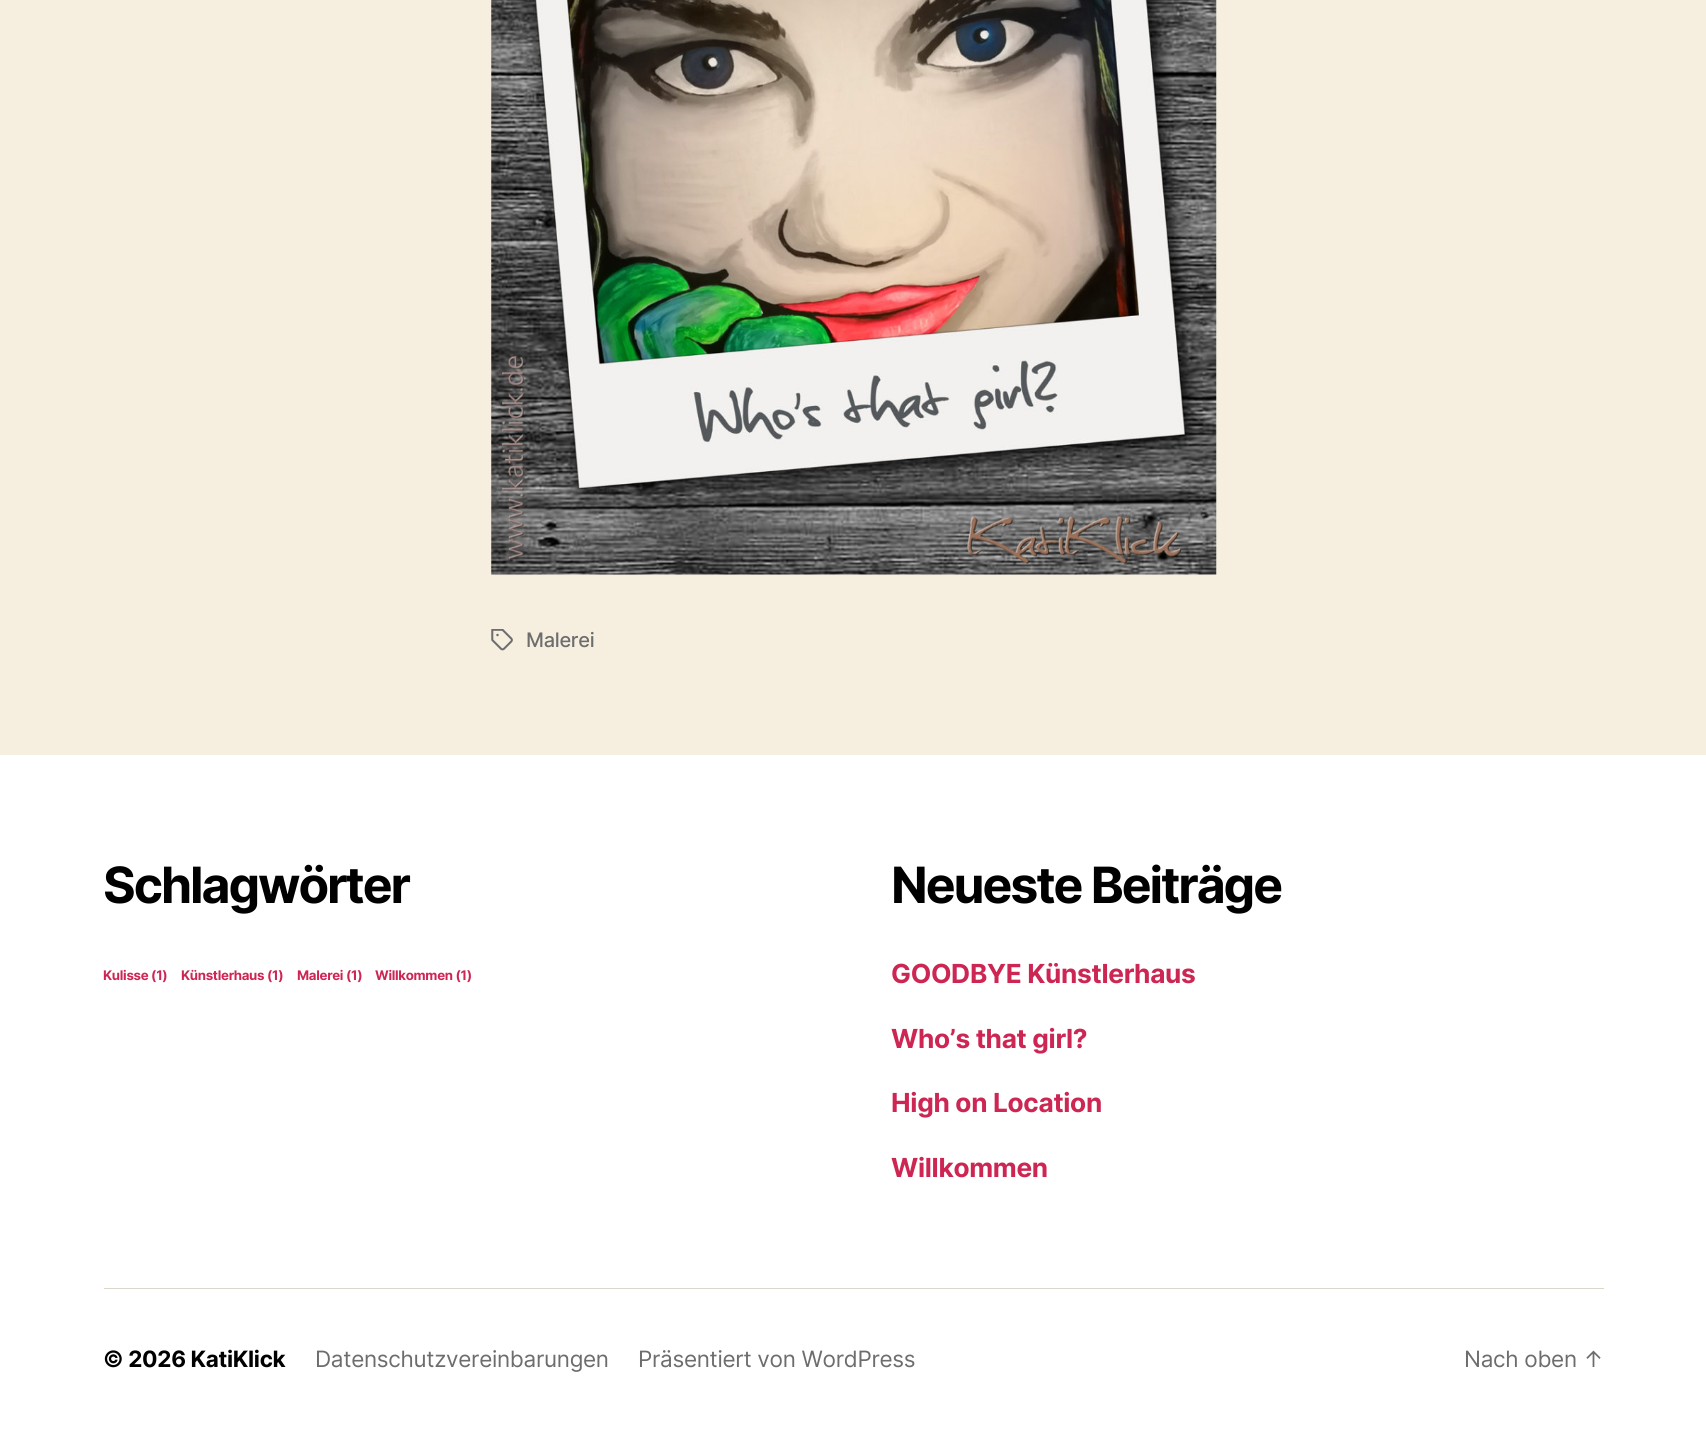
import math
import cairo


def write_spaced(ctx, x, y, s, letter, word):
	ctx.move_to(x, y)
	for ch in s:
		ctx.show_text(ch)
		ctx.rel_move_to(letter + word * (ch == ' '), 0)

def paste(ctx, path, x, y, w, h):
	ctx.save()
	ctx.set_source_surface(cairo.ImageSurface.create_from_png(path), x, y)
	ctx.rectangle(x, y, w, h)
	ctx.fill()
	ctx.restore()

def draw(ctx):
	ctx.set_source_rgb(0.961, 0.937, 0.878)
	ctx.paint()
	paste(ctx, 'media/1.png', 491, 0, 726, 575)
	paste(ctx, 'media/2.png', 491, 629, 22, 22)
	ctx.select_font_face('Inter Medium')
	ctx.set_font_size(20)
	ctx.set_source_rgb(0.427, 0.427, 0.427)
	write_spaced(ctx, 526, 647, 'Malerei', -0.3, 0)
	ctx.set_source_rgb(1, 1, 1)
	ctx.rectangle(0, 755, 1706, 674)
	ctx.fill()
	ctx.set_source_rgb(0.863, 0.843, 0.792)
	ctx.rectangle(104, 1288, 1500, 1)
	ctx.fill()
	ctx.select_font_face('Inter', cairo.FONT_SLANT_NORMAL, cairo.FONT_WEIGHT_BOLD)
	ctx.set_font_size(50)
	ctx.set_source_rgb(0, 0, 0)
	write_spaced(ctx, 103, 903, 'Schlagwörter', -2.1, 0)
	ctx.set_font_size(13.25)
	ctx.set_source_rgb(0.804, 0.149, 0.325)
	for x, y, s in [
		(103, 980, 'Kulisse (1)'),
		(181, 980, 'Künstlerhaus (1)'),
		(297, 980, 'Malerei (1)'),
		(375, 980, 'Willkommen (1)'),
	]:
		write_spaced(ctx, x, y, s, -0.3, 0)
	ctx.set_font_size(50)
	ctx.set_source_rgb(0, 0, 0)
	write_spaced(ctx, 891, 903, 'Neueste Beiträge', -2.1, 0)
	ctx.set_font_size(26.25)
	ctx.set_source_rgb(0.804, 0.149, 0.325)
	for x, y, s in [
		(891, 983, 'GOODBYE Künstlerhaus'),
		(891, 1048, 'Who’s that girl?'),
		(891, 1112, 'High on Location'),
		(891, 1177, 'Willkommen'),
	]:
		write_spaced(ctx, x, y, s, -0.3, 0)
	ctx.set_font_size(22.5)
	ctx.set_source_rgb(0, 0, 0)
	write_spaced(ctx, 103, 1367, '© 2026 KatiKlick', -0.3, 0)
	ctx.select_font_face('Inter')
	ctx.set_source_rgb(0.427, 0.427, 0.427)
	for x, y, s in [
		(315, 1367, 'Datenschutzvereinbarungen'),
		(638, 1367, 'Präsentiert von WordPress'),
		(1464, 1367, 'Nach oben ↑'),
	]:
		write_spaced(ctx, x, y, s, -0.3, 0)


surface = cairo.ImageSurface(cairo.FORMAT_RGB24, 1706, 1429)
ctx = cairo.Context(surface)
options = cairo.FontOptions()
options.set_hint_metrics(cairo.HINT_METRICS_OFF)
options.set_hint_style(cairo.HINT_STYLE_NONE)
ctx.set_font_options(options)
ctx.set_miter_limit(4)
draw(ctx)
surface.write_to_png('image.png')
